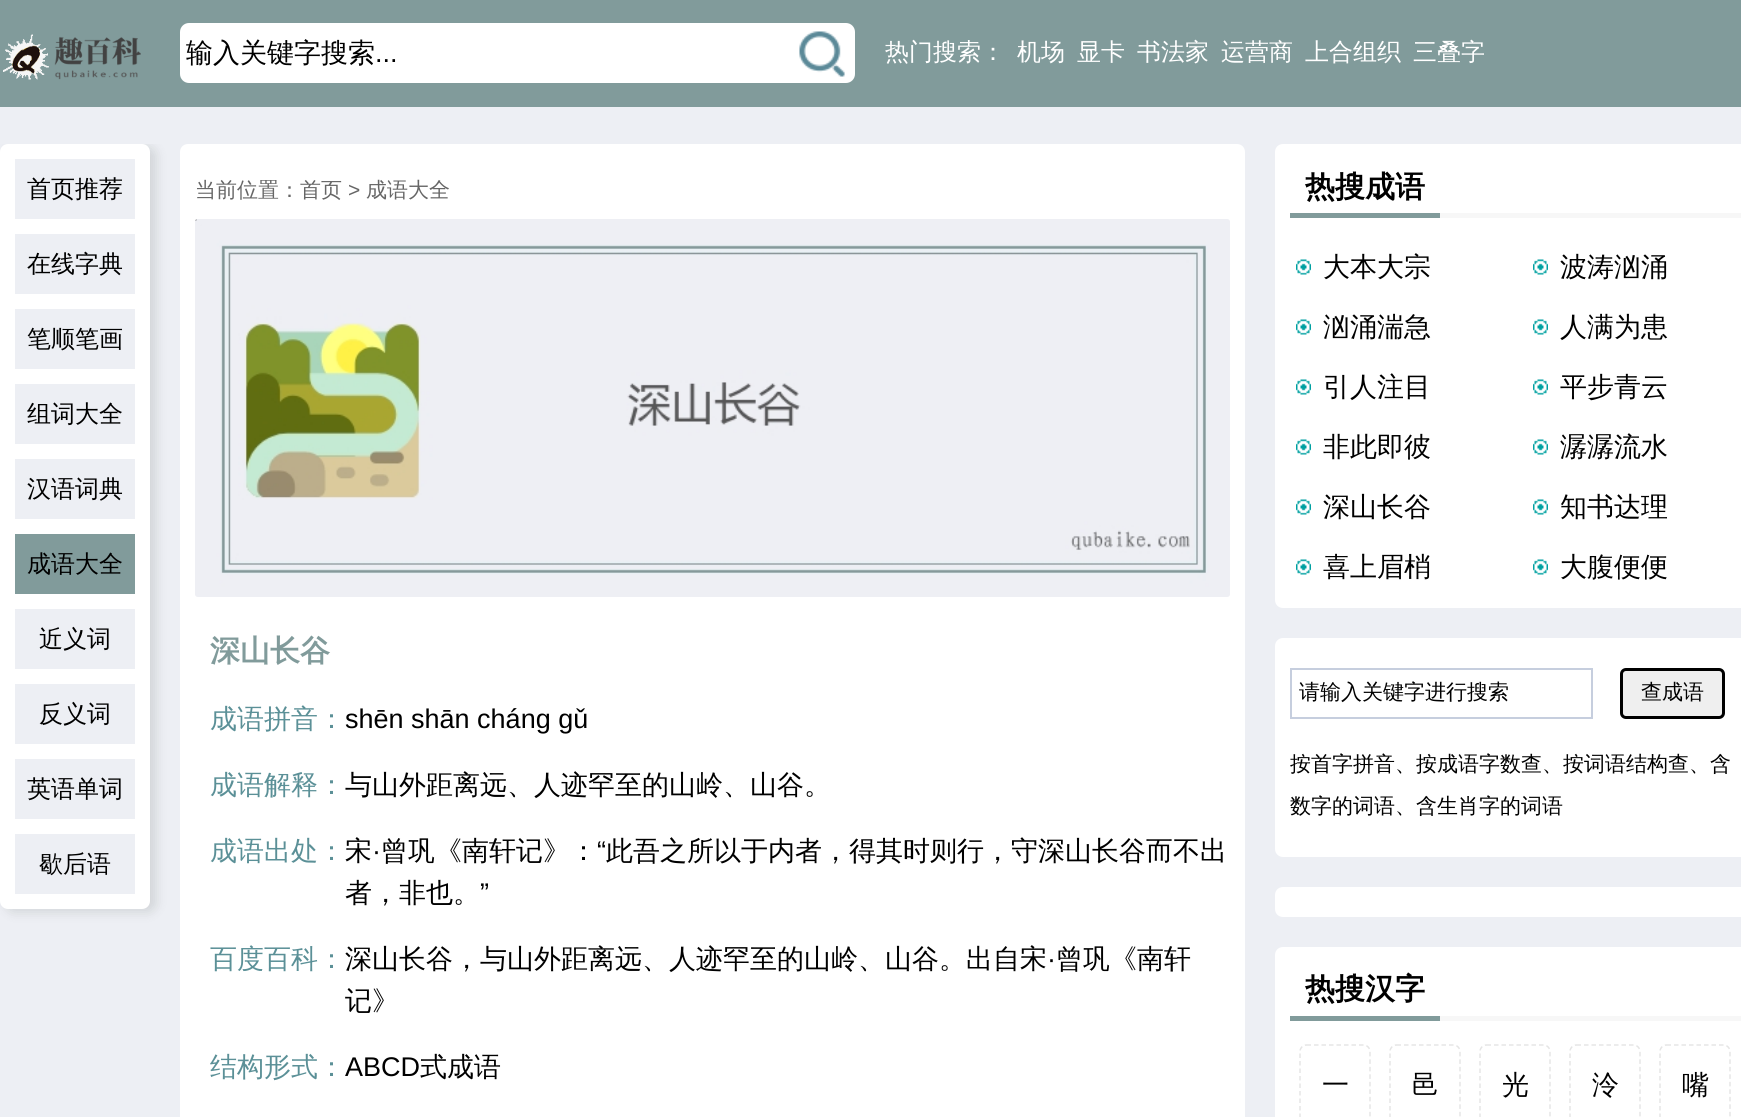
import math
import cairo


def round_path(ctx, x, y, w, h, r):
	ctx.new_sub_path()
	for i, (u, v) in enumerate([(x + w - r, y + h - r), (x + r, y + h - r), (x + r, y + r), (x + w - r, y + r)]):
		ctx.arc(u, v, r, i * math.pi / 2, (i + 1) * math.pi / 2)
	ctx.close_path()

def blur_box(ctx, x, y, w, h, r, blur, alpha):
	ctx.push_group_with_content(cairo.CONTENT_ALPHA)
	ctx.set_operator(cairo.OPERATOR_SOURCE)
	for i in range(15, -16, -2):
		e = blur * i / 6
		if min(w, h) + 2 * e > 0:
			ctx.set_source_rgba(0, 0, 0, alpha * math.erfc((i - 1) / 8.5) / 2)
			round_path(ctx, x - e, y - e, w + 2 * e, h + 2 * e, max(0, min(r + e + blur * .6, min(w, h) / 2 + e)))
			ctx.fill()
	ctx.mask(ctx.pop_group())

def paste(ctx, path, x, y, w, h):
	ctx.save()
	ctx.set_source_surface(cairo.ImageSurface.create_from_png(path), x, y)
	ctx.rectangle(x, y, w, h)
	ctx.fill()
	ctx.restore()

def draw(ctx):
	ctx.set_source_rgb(0.929, 0.937, 0.957)
	ctx.paint()
	ctx.set_source_rgb(0.506, 0.608, 0.608)
	ctx.rectangle(0, 0, 1741, 107)
	ctx.fill()
	paste(ctx, 'media/1.png', 3, 34, 138, 46)
	ctx.set_source_rgb(1, 1, 1)
	round_path(ctx, 180, 23, 675, 60, 9)
	ctx.fill()
	ctx.select_font_face('WenQuanYi Zen Hei Medium')
	ctx.set_font_size(27)
	ctx.set_source_rgb(0, 0, 0)
	ctx.move_to(186, 62)
	ctx.show_text('输入关键字搜索')
	ctx.select_font_face('Liberation Sans')
	ctx.move_to(375, 62)
	ctx.show_text('...')
	paste(ctx, 'media/2.png', 799, 31, 46, 46)
	ctx.select_font_face('WenQuanYi Zen Hei Medium')
	ctx.set_font_size(24)
	ctx.set_source_rgb(1, 1, 1)
	for x, y, s in [
		(885, 60, '热门搜索：'),
		(1017, 60, '机场'),
		(1077, 60, '显卡'),
		(1137, 60, '书法家'),
		(1221, 60, '运营商'),
		(1305, 60, '上合组织'),
		(1413, 60, '三叠字'),
	]:
		ctx.move_to(x, y)
		ctx.show_text(s)
	ctx.save()
	ctx.rectangle(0, 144, 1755, 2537)
	ctx.clip()
	ctx.set_source_rgb(0, 0.051, 0)
	blur_box(ctx, 6, 147, 150, 765, 8, 6, 0.12)
	ctx.restore()
	round_path(ctx, 0, 144, 150, 765, 8)
	ctx.fill()
	ctx.set_source_rgb(0.929, 0.937, 0.957)
	ctx.rectangle(15, 159, 120, 60)
	ctx.fill()
	ctx.set_source_rgb(0, 0, 0)
	ctx.move_to(27, 197)
	ctx.show_text('首页推荐')
	ctx.set_source_rgb(0.929, 0.937, 0.957)
	ctx.rectangle(15, 234, 120, 60)
	ctx.fill()
	ctx.set_source_rgb(0, 0, 0)
	ctx.move_to(27, 272)
	ctx.show_text('在线字典')
	ctx.set_source_rgb(0.929, 0.937, 0.957)
	ctx.rectangle(15, 309, 120, 60)
	ctx.fill()
	ctx.set_source_rgb(0, 0, 0)
	ctx.move_to(27, 347)
	ctx.show_text('笔顺笔画')
	ctx.set_source_rgb(0.929, 0.937, 0.957)
	ctx.rectangle(15, 384, 120, 60)
	ctx.fill()
	ctx.set_source_rgb(0, 0, 0)
	ctx.move_to(27, 422)
	ctx.show_text('组词大全')
	ctx.set_source_rgb(0.929, 0.937, 0.957)
	ctx.rectangle(15, 459, 120, 60)
	ctx.fill()
	ctx.set_source_rgb(0, 0, 0)
	ctx.move_to(27, 497)
	ctx.show_text('汉语词典')
	ctx.set_source_rgb(0.506, 0.608, 0.608)
	ctx.rectangle(15, 534, 120, 60)
	ctx.fill()
	ctx.set_source_rgb(0, 0, 0)
	ctx.move_to(27, 572)
	ctx.show_text('成语大全')
	ctx.set_source_rgb(0.929, 0.937, 0.957)
	ctx.rectangle(15, 609, 120, 60)
	ctx.fill()
	ctx.set_source_rgb(0, 0, 0)
	ctx.move_to(39, 647)
	ctx.show_text('近义词')
	ctx.set_source_rgb(0.929, 0.937, 0.957)
	ctx.rectangle(15, 684, 120, 60)
	ctx.fill()
	ctx.set_source_rgb(0, 0, 0)
	ctx.move_to(39, 722)
	ctx.show_text('反义词')
	ctx.set_source_rgb(0.929, 0.937, 0.957)
	ctx.rectangle(15, 759, 120, 60)
	ctx.fill()
	ctx.set_source_rgb(0, 0, 0)
	ctx.move_to(27, 797)
	ctx.show_text('英语单词')
	ctx.set_source_rgb(0.929, 0.937, 0.957)
	ctx.rectangle(15, 834, 120, 60)
	ctx.fill()
	ctx.set_source_rgb(0, 0, 0)
	ctx.move_to(39, 872)
	ctx.show_text('歇后语')
	ctx.set_source_rgb(1, 1, 1)
	ctx.new_path()
	ctx.move_to(188, 144)
	ctx.line_to(1237, 144)
	ctx.curve_to(1241.5, 144, 1245, 147.5, 1245, 152)
	ctx.line_to(1245, 219)
	ctx.line_to(180, 219)
	ctx.line_to(180, 152)
	ctx.curve_to(180, 147.5, 183.5, 144, 188, 144)
	ctx.close_path()
	ctx.fill()
	ctx.set_font_size(21)
	ctx.set_source_rgb(0.4, 0.4, 0.4)
	ctx.move_to(195, 197)
	ctx.show_text('当前位置：首页')
	ctx.select_font_face('Liberation Sans')
	ctx.move_to(348, 197)
	ctx.show_text('>')
	ctx.select_font_face('WenQuanYi Zen Hei Medium')
	ctx.move_to(366, 197)
	ctx.show_text('成语大全')
	ctx.set_source_rgb(1, 1, 1)
	ctx.rectangle(180, 219, 1065, 898)
	ctx.fill()
	paste(ctx, 'media/3.png', 195, 219, 1035, 378)
	ctx.select_font_face('WenQuanYi Zen Hei', cairo.FONT_SLANT_NORMAL, cairo.FONT_WEIGHT_BOLD)
	ctx.set_font_size(30)
	ctx.set_source_rgb(0.506, 0.608, 0.608)
	ctx.move_to(210, 661)
	ctx.show_text('深山长谷')
	ctx.select_font_face('WenQuanYi Zen Hei Medium')
	ctx.set_font_size(27)
	ctx.set_source_rgb(0.357, 0.565, 0.592)
	ctx.move_to(210, 728)
	ctx.show_text('成语拼音：')
	ctx.select_font_face('Liberation Sans')
	ctx.set_source_rgb(0, 0, 0)
	ctx.move_to(345, 728)
	ctx.show_text('shēn shān cháng gǔ')
	ctx.select_font_face('WenQuanYi Zen Hei Medium')
	ctx.set_source_rgb(0.357, 0.565, 0.592)
	ctx.move_to(210, 794)
	ctx.show_text('成语解释：')
	ctx.set_source_rgb(0, 0, 0)
	ctx.move_to(345, 794)
	ctx.show_text('与山外距离远、人迹罕至的山岭、山谷。')
	ctx.set_source_rgb(0.357, 0.565, 0.592)
	ctx.move_to(210, 860)
	ctx.show_text('成语出处：')
	ctx.set_source_rgb(0, 0, 0)
	ctx.move_to(345, 860)
	ctx.show_text('宋')
	ctx.move_to(381, 860)
	ctx.show_text('曾巩《南轩记》：')
	ctx.select_font_face('Liberation Sans')
	ctx.move_to(597, 860)
	ctx.show_text('“')
	ctx.select_font_face('WenQuanYi Zen Hei Medium')
	ctx.move_to(606, 860)
	ctx.show_text('此吾之所以于内者，得其时则行，守深山长谷而不出')
	ctx.select_font_face('Liberation Sans')
	ctx.move_to(372, 860)
	ctx.show_text('·')
	ctx.select_font_face('WenQuanYi Zen Hei Medium')
	ctx.move_to(345, 902)
	ctx.show_text('者，非也。')
	ctx.select_font_face('Liberation Sans')
	ctx.move_to(480, 902)
	ctx.show_text('”')
	ctx.select_font_face('WenQuanYi Zen Hei Medium')
	ctx.set_source_rgb(0.357, 0.565, 0.592)
	ctx.move_to(210, 968)
	ctx.show_text('百度百科：')
	ctx.set_source_rgb(0, 0, 0)
	ctx.move_to(345, 968)
	ctx.show_text('深山长谷，与山外距离远、人迹罕至的山岭、山谷。出自宋')
	ctx.select_font_face('Liberation Sans')
	ctx.move_to(1047, 968)
	ctx.show_text('·')
	ctx.select_font_face('WenQuanYi Zen Hei Medium')
	ctx.move_to(1056, 968)
	ctx.show_text('曾巩《南轩')
	ctx.move_to(345, 1010)
	ctx.show_text('记》')
	ctx.set_source_rgb(0.357, 0.565, 0.592)
	ctx.move_to(210, 1076)
	ctx.show_text('结构形式：')
	ctx.select_font_face('Liberation Sans')
	ctx.set_source_rgb(0, 0, 0)
	ctx.move_to(345, 1076)
	ctx.show_text('ABCD')
	ctx.select_font_face('WenQuanYi Zen Hei Medium')
	ctx.move_to(420, 1076)
	ctx.show_text('式成语')
	ctx.set_source_rgb(1, 1, 1)
	ctx.new_path()
	ctx.move_to(1283, 144)
	ctx.line_to(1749, 144)
	ctx.line_to(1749, 608)
	ctx.line_to(1283, 608)
	ctx.curve_to(1278.5, 608, 1275, 604.5, 1275, 600)
	ctx.line_to(1275, 152)
	ctx.curve_to(1275, 147.5, 1278.5, 144, 1283, 144)
	ctx.close_path()
	ctx.fill()
	ctx.set_source_rgb(0.965, 0.965, 0.965)
	ctx.rectangle(1440, 213, 301, 5)
	ctx.fill()
	ctx.set_source_rgb(0.506, 0.608, 0.608)
	ctx.rectangle(1290, 213, 150, 5)
	ctx.fill()
	ctx.select_font_face('WenQuanYi Zen Hei', cairo.FONT_SLANT_NORMAL, cairo.FONT_WEIGHT_BOLD)
	ctx.set_font_size(30)
	ctx.set_source_rgb(0, 0, 0)
	ctx.move_to(1305, 197)
	ctx.show_text('热搜成语')
	paste(ctx, 'media/4.png', 1296, 259, 15, 16)
	ctx.select_font_face('WenQuanYi Zen Hei Medium')
	ctx.set_font_size(27)
	ctx.move_to(1323, 276)
	ctx.show_text('大本大宗')
	paste(ctx, 'media/4.png', 1533, 259, 15, 16)
	ctx.move_to(1560, 276)
	ctx.show_text('波涛汹涌')
	paste(ctx, 'media/4.png', 1296, 319, 15, 16)
	ctx.move_to(1323, 336)
	ctx.show_text('汹涌湍急')
	paste(ctx, 'media/4.png', 1533, 319, 15, 16)
	ctx.move_to(1560, 336)
	ctx.show_text('人满为患')
	paste(ctx, 'media/4.png', 1296, 379, 15, 16)
	ctx.move_to(1323, 396)
	ctx.show_text('引人注目')
	paste(ctx, 'media/4.png', 1533, 379, 15, 16)
	ctx.move_to(1560, 396)
	ctx.show_text('平步青云')
	paste(ctx, 'media/4.png', 1296, 439, 15, 16)
	ctx.move_to(1323, 456)
	ctx.show_text('非此即彼')
	paste(ctx, 'media/4.png', 1533, 439, 15, 16)
	ctx.move_to(1560, 456)
	ctx.show_text('潺潺流水')
	paste(ctx, 'media/4.png', 1296, 499, 15, 16)
	ctx.move_to(1323, 516)
	ctx.show_text('深山长谷')
	paste(ctx, 'media/4.png', 1533, 499, 15, 16)
	ctx.move_to(1560, 516)
	ctx.show_text('知书达理')
	paste(ctx, 'media/4.png', 1296, 559, 15, 16)
	ctx.move_to(1323, 576)
	ctx.show_text('喜上眉梢')
	paste(ctx, 'media/4.png', 1533, 559, 15, 16)
	ctx.move_to(1560, 576)
	ctx.show_text('大腹便便')
	ctx.set_source_rgb(1, 1, 1)
	round_path(ctx, 1275, 638, 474, 219, 8)
	ctx.fill()
	ctx.rectangle(1291, 669, 301, 49)
	ctx.set_source_rgb(0.776, 0.808, 0.871)
	ctx.stroke()
	ctx.set_font_size(21)
	ctx.set_source_rgb(0, 0, 0)
	ctx.move_to(1299, 699)
	ctx.show_text('请输入关键字进行搜索')
	ctx.set_source_rgb(0.937, 0.937, 0.937)
	round_path(ctx, 1621.5, 669.5, 102, 48, 4.5)
	ctx.fill_preserve()
	ctx.set_source_rgb(0, 0, 0)
	ctx.set_line_width(3)
	ctx.stroke()
	for x, y, s in [
		(1641, 699, '查成语'),
		(1290, 771, '按首字拼音、按成语字数查、按词语结构查、含'),
		(1290, 813, '数字的词语、含生肖字的词语'),
	]:
		ctx.move_to(x, y)
		ctx.show_text(s)
	ctx.set_source_rgb(1, 1, 1)
	ctx.new_path()
	ctx.move_to(1283, 887)
	ctx.line_to(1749, 887)
	ctx.line_to(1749, 917)
	ctx.line_to(1283, 917)
	ctx.curve_to(1278.5, 917, 1275, 913.5, 1275, 909)
	ctx.line_to(1275, 895)
	ctx.curve_to(1275, 890.5, 1278.5, 887, 1283, 887)
	ctx.close_path()
	ctx.fill()
	ctx.new_path()
	ctx.move_to(1283, 947)
	ctx.line_to(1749, 947)
	ctx.line_to(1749, 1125)
	ctx.line_to(1283, 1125)
	ctx.curve_to(1278.5, 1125, 1275, 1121.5, 1275, 1117)
	ctx.line_to(1275, 955)
	ctx.curve_to(1275, 950.5, 1278.5, 947, 1283, 947)
	ctx.close_path()
	ctx.fill()
	ctx.set_source_rgb(0.965, 0.965, 0.965)
	ctx.rectangle(1440, 1016, 301, 5)
	ctx.fill()
	ctx.set_source_rgb(0.506, 0.608, 0.608)
	ctx.rectangle(1290, 1016, 150, 5)
	ctx.fill()
	ctx.select_font_face('WenQuanYi Zen Hei', cairo.FONT_SLANT_NORMAL, cairo.FONT_WEIGHT_BOLD)
	ctx.set_font_size(30)
	ctx.set_source_rgb(0, 0, 0)
	ctx.move_to(1305, 999)
	ctx.show_text('热搜汉字')
	ctx.new_path()
	ctx.move_to(1306.5, 1045)
	ctx.line_to(1363.5, 1045)
	ctx.curve_to(1367, 1045, 1370, 1048, 1370, 1051.5)
	ctx.line_to(1370, 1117.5)
	ctx.curve_to(1370, 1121, 1367, 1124, 1363.5, 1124)
	ctx.line_to(1306.5, 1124)
	ctx.curve_to(1303, 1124, 1300, 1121, 1300, 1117.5)
	ctx.line_to(1300, 1051.5)
	ctx.curve_to(1300, 1048, 1303, 1045, 1306.5, 1045)
	ctx.close_path()
	ctx.set_source_rgb(0.898, 0.898, 0.898)
	ctx.set_line_width(1.5)
	ctx.set_dash([4.5, 3])
	ctx.stroke()
	ctx.select_font_face('WenQuanYi Zen Hei Medium')
	ctx.set_font_size(27)
	ctx.set_source_rgb(0, 0, 0)
	ctx.move_to(1322, 1094)
	ctx.show_text('一')
	ctx.new_path()
	ctx.move_to(1396.5, 1045)
	ctx.line_to(1453.5, 1045)
	ctx.curve_to(1457, 1045, 1460, 1048, 1460, 1051.5)
	ctx.line_to(1460, 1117.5)
	ctx.curve_to(1460, 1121, 1457, 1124, 1453.5, 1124)
	ctx.line_to(1396.5, 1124)
	ctx.curve_to(1393, 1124, 1390, 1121, 1390, 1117.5)
	ctx.line_to(1390, 1051.5)
	ctx.curve_to(1390, 1048, 1393, 1045, 1396.5, 1045)
	ctx.close_path()
	ctx.set_source_rgb(0.898, 0.898, 0.898)
	ctx.stroke()
	ctx.set_source_rgb(0, 0, 0)
	ctx.move_to(1412, 1094)
	ctx.show_text('邑')
	ctx.new_path()
	ctx.move_to(1486.5, 1045)
	ctx.line_to(1543.5, 1045)
	ctx.curve_to(1547, 1045, 1550, 1048, 1550, 1051.5)
	ctx.line_to(1550, 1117.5)
	ctx.curve_to(1550, 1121, 1547, 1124, 1543.5, 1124)
	ctx.line_to(1486.5, 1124)
	ctx.curve_to(1483, 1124, 1480, 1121, 1480, 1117.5)
	ctx.line_to(1480, 1051.5)
	ctx.curve_to(1480, 1048, 1483, 1045, 1486.5, 1045)
	ctx.close_path()
	ctx.set_source_rgb(0.898, 0.898, 0.898)
	ctx.stroke()
	ctx.set_source_rgb(0, 0, 0)
	ctx.move_to(1502, 1094)
	ctx.show_text('光')
	ctx.new_path()
	ctx.move_to(1576.5, 1045)
	ctx.line_to(1633.5, 1045)
	ctx.curve_to(1637, 1045, 1640, 1048, 1640, 1051.5)
	ctx.line_to(1640, 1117.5)
	ctx.curve_to(1640, 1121, 1637, 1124, 1633.5, 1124)
	ctx.line_to(1576.5, 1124)
	ctx.curve_to(1573, 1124, 1570, 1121, 1570, 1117.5)
	ctx.line_to(1570, 1051.5)
	ctx.curve_to(1570, 1048, 1573, 1045, 1576.5, 1045)
	ctx.close_path()
	ctx.set_source_rgb(0.898, 0.898, 0.898)
	ctx.stroke()
	ctx.set_source_rgb(0, 0, 0)
	ctx.move_to(1592, 1094)
	ctx.show_text('泠')
	ctx.new_path()
	ctx.move_to(1666.5, 1045)
	ctx.line_to(1723.5, 1045)
	ctx.curve_to(1727, 1045, 1730, 1048, 1730, 1051.5)
	ctx.line_to(1730, 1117.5)
	ctx.curve_to(1730, 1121, 1727, 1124, 1723.5, 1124)
	ctx.line_to(1666.5, 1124)
	ctx.curve_to(1663, 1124, 1660, 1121, 1660, 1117.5)
	ctx.line_to(1660, 1051.5)
	ctx.curve_to(1660, 1048, 1663, 1045, 1666.5, 1045)
	ctx.close_path()
	ctx.set_source_rgb(0.898, 0.898, 0.898)
	ctx.stroke()
	ctx.set_source_rgb(0, 0, 0)
	ctx.move_to(1682, 1094)
	ctx.show_text('嘴')


surface = cairo.ImageSurface(cairo.FORMAT_RGB24, 1741, 1117)
ctx = cairo.Context(surface)
options = cairo.FontOptions()
options.set_hint_metrics(cairo.HINT_METRICS_OFF)
options.set_hint_style(cairo.HINT_STYLE_NONE)
ctx.set_font_options(options)
ctx.set_miter_limit(4)
draw(ctx)
surface.write_to_png('image.png')
